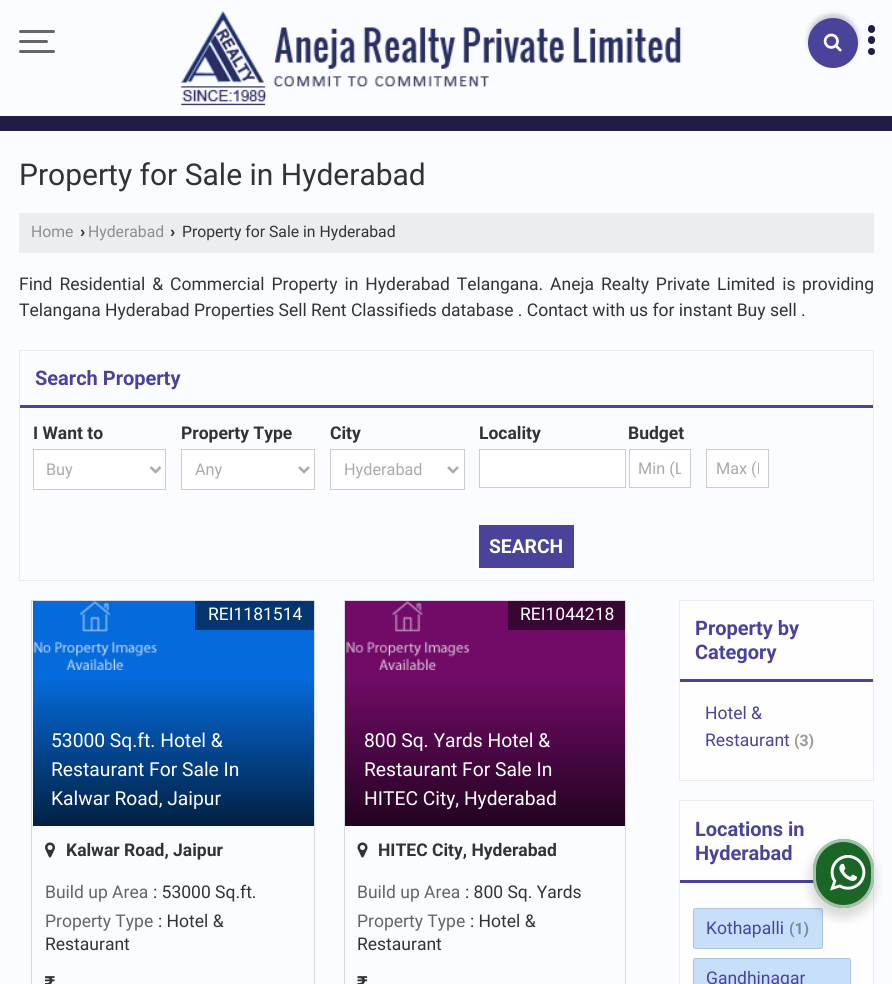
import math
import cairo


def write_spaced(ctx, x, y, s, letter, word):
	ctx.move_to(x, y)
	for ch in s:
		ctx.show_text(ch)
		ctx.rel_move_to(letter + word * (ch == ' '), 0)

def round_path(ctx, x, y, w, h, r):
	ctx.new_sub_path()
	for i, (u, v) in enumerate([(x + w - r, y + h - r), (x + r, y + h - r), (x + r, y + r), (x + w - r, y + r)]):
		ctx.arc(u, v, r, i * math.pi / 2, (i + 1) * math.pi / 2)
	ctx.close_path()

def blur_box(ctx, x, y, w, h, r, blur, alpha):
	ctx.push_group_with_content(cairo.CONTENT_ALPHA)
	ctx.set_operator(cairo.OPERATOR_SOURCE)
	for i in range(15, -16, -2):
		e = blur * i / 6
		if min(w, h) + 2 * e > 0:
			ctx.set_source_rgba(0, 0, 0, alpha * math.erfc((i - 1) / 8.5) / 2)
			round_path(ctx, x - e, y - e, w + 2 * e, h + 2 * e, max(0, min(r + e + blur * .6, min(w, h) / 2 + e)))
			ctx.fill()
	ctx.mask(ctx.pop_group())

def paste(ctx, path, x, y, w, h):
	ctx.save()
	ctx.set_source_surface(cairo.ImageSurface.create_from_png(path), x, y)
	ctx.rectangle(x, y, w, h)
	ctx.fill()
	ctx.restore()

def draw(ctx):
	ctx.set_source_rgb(0.98, 0.988, 1)
	ctx.paint()
	paste(ctx, 'media/1.png', 181, 11, 501, 95)
	ctx.set_source_rgb(0, 0, 0)
	blur_box(ctx, 808, 14, 50, 50, 25, 2.5, 0.2)
	ctx.set_source_rgb(0.286, 0.263, 0.6)
	ctx.arc(833, 43, 25, 0, 2 * math.pi)
	ctx.fill()
	paste(ctx, 'media/2.png', 823, 33, 19, 19)
	ctx.set_source_rgb(0.122, 0.11, 0.271)
	round_path(ctx, 868, 36, 7, 8, 3.5)
	ctx.fill()
	round_path(ctx, 868, 25, 7, 8, 3.5)
	ctx.fill()
	ctx.arc(871.5, 51.5, 3.5, 0, 2 * math.pi)
	ctx.fill()
	ctx.rectangle(0, 116, 892, 15)
	ctx.fill()
	ctx.set_source_rgb(0.4, 0.4, 0.4)
	round_path(ctx, 19, 30, 36, 3, 1.5)
	ctx.fill()
	round_path(ctx, 19, 40, 29, 3, 1.5)
	ctx.fill()
	round_path(ctx, 19, 50, 36, 3, 1.5)
	ctx.fill()
	ctx.select_font_face('Roboto')
	ctx.set_font_size(30)
	ctx.set_source_rgb(0.2, 0.2, 0.2)
	ctx.move_to(19, 185)
	ctx.show_text('Property for Sale in Hyderabad')
	ctx.set_source_rgb(0.922, 0.929, 0.941)
	ctx.rectangle(19, 213, 855, 40)
	ctx.fill()
	ctx.set_font_size(15.75)
	ctx.set_source_rgb(0.553, 0.557, 0.565)
	ctx.move_to(31, 237)
	ctx.show_text('Home')
	ctx.select_font_face('Liberation Sans', cairo.FONT_SLANT_NORMAL, cairo.FONT_WEIGHT_BOLD)
	ctx.set_source_rgb(0.2, 0.2, 0.2)
	ctx.move_to(80, 237)
	ctx.show_text('›')
	ctx.select_font_face('Roboto')
	ctx.set_source_rgb(0.553, 0.557, 0.565)
	ctx.move_to(88, 237)
	ctx.show_text('Hyderabad')
	ctx.select_font_face('Liberation Sans', cairo.FONT_SLANT_NORMAL, cairo.FONT_WEIGHT_BOLD)
	ctx.set_source_rgb(0.2, 0.2, 0.2)
	ctx.move_to(170, 237)
	ctx.show_text('›')
	ctx.select_font_face('Roboto')
	ctx.move_to(182, 237)
	ctx.show_text('Property for Sale in Hyderabad')
	ctx.set_font_size(17.5)
	write_spaced(ctx, 19, 290, 'Find Residential & Commercial Property in Hyderabad Telangana. Aneja Realty Private Limited is', 0, 2.6)
	ctx.move_to(802, 290)
	ctx.show_text('providing')
	ctx.move_to(19, 316)
	ctx.show_text('Telangana Hyderabad Properties Sell Rent Classifieds database . Contact with us for instant Buy sell .')
	ctx.rectangle(19.5, 350.5, 854, 230)
	ctx.set_source_rgb(0.914, 0.918, 0.929)
	ctx.set_line_width(1)
	ctx.stroke()
	ctx.set_source_rgb(0.286, 0.263, 0.6)
	ctx.rectangle(20, 405, 853, 3)
	ctx.fill()
	ctx.select_font_face('Roboto', cairo.FONT_SLANT_NORMAL, cairo.FONT_WEIGHT_BOLD)
	ctx.set_font_size(20)
	ctx.move_to(35, 385)
	ctx.show_text('Search Property')
	ctx.set_font_size(17.5)
	ctx.set_source_rgb(0.2, 0.2, 0.2)
	ctx.move_to(33, 439)
	ctx.show_text('I Want to')
	ctx.set_source_rgb(1, 1, 1)
	ctx.rectangle(33.5, 449.5, 132, 40)
	ctx.fill_preserve()
	ctx.set_source_rgb(0.8, 0.8, 0.8)
	ctx.stroke()
	ctx.new_path()
	ctx.move_to(150.5, 467)
	ctx.line_to(155.5, 472)
	ctx.line_to(160.5, 467)
	ctx.set_source_rgb(0.667, 0.667, 0.667)
	ctx.set_line_width(2.5)
	ctx.stroke()
	ctx.select_font_face('Roboto')
	ctx.set_font_size(16.25)
	ctx.move_to(46, 475)
	ctx.show_text('Buy')
	ctx.select_font_face('Roboto', cairo.FONT_SLANT_NORMAL, cairo.FONT_WEIGHT_BOLD)
	ctx.set_font_size(17.5)
	ctx.set_source_rgb(0.2, 0.2, 0.2)
	ctx.move_to(181, 439)
	ctx.show_text('Property Type')
	ctx.set_source_rgb(1, 1, 1)
	ctx.rectangle(181.5, 449.5, 133, 40)
	ctx.fill_preserve()
	ctx.set_source_rgb(0.8, 0.8, 0.8)
	ctx.set_line_width(1)
	ctx.stroke()
	ctx.new_path()
	ctx.move_to(299, 467)
	ctx.line_to(304, 472)
	ctx.line_to(309, 467)
	ctx.set_source_rgb(0.667, 0.667, 0.667)
	ctx.set_line_width(2.5)
	ctx.stroke()
	ctx.select_font_face('Roboto')
	ctx.set_font_size(16.25)
	ctx.move_to(195, 475)
	ctx.show_text('Any')
	ctx.select_font_face('Roboto', cairo.FONT_SLANT_NORMAL, cairo.FONT_WEIGHT_BOLD)
	ctx.set_font_size(17.5)
	ctx.set_source_rgb(0.2, 0.2, 0.2)
	ctx.move_to(330, 439)
	ctx.show_text('City')
	ctx.set_source_rgb(1, 1, 1)
	ctx.rectangle(330.5, 449.5, 134, 40)
	ctx.fill_preserve()
	ctx.set_source_rgb(0.8, 0.8, 0.8)
	ctx.set_line_width(1)
	ctx.stroke()
	ctx.new_path()
	ctx.move_to(448, 467)
	ctx.line_to(453, 472)
	ctx.line_to(458, 467)
	ctx.set_source_rgb(0.667, 0.667, 0.667)
	ctx.set_line_width(2.5)
	ctx.stroke()
	ctx.select_font_face('Roboto')
	ctx.set_font_size(16.25)
	ctx.move_to(344, 475)
	ctx.show_text('Hyderabad')
	ctx.select_font_face('Roboto', cairo.FONT_SLANT_NORMAL, cairo.FONT_WEIGHT_BOLD)
	ctx.set_font_size(17.5)
	ctx.set_source_rgb(0.2, 0.2, 0.2)
	ctx.move_to(479, 439)
	ctx.show_text('Locality')
	ctx.set_source_rgb(1, 1, 1)
	ctx.rectangle(479.5, 449.5, 146, 38)
	ctx.fill_preserve()
	ctx.set_source_rgb(0.8, 0.8, 0.8)
	ctx.set_line_width(1)
	ctx.stroke()
	ctx.set_source_rgb(0.2, 0.2, 0.2)
	ctx.move_to(628, 439)
	ctx.show_text('Budget')
	ctx.set_source_rgb(1, 1, 1)
	ctx.rectangle(629.5, 449.5, 61, 38)
	ctx.fill_preserve()
	ctx.set_source_rgb(0.8, 0.8, 0.8)
	ctx.stroke()
	ctx.save()
	ctx.rectangle(639, 459, 42, 19)
	ctx.clip()
	ctx.select_font_face('Roboto')
	ctx.set_font_size(16.25)
	ctx.set_source_rgb(0.667, 0.667, 0.667)
	ctx.move_to(638, 474)
	ctx.show_text('Min (L')
	ctx.restore()
	ctx.set_source_rgb(1, 1, 1)
	ctx.rectangle(706.5, 449.5, 62, 38)
	ctx.fill_preserve()
	ctx.set_source_rgb(0.8, 0.8, 0.8)
	ctx.stroke()
	ctx.save()
	ctx.rectangle(716, 459, 43, 19)
	ctx.clip()
	ctx.select_font_face('Roboto')
	ctx.set_font_size(16.25)
	ctx.set_source_rgb(0.667, 0.667, 0.667)
	ctx.move_to(716, 474)
	ctx.show_text('Max (L')
	ctx.restore()
	ctx.set_source_rgb(0.286, 0.263, 0.6)
	ctx.rectangle(479, 525, 95, 43)
	ctx.fill()
	ctx.set_font_size(19.25)
	ctx.set_source_rgb(1, 1, 1)
	ctx.move_to(489, 553)
	ctx.show_text('SEARCH')
	ctx.rectangle(31.5, 600.5, 283, 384)
	ctx.set_source_rgb(0.855, 0.859, 0.871)
	ctx.stroke()
	ctx.set_source_rgb(0.02, 0.416, 0.859)
	ctx.rectangle(33, 601, 281, 77)
	ctx.fill()
	paste(ctx, 'media/3.png', 33, 601, 124, 69)
	ctx.set_source_rgb(0.012, 0.208, 0.431)
	ctx.rectangle(195, 601, 119, 29)
	ctx.fill()
	ctx.select_font_face('Roboto')
	ctx.set_font_size(17.5)
	ctx.set_source_rgb(1, 1, 1)
	ctx.move_to(208, 620)
	ctx.show_text('REI1181514')
	gradient = cairo.LinearGradient(173, 678, 173, 826)
	gradient.add_color_stop_rgba(0, 0.02, 0.416, 0.859, 1)
	gradient.add_color_stop_rgba(1, 0.008, 0.125, 0.259, 1)
	ctx.set_source(gradient)
	ctx.rectangle(33, 678, 281, 148)
	ctx.fill()
	ctx.set_font_size(19.25)
	ctx.set_source_rgb(1, 1, 1)
	for x, y, s in [
		(51, 747, '53000 Sq.ft. Hotel &'),
		(51, 776, 'Restaurant For Sale In'),
		(51, 805, 'Kalwar Road, Jaipur'),
	]:
		ctx.move_to(x, y)
		ctx.show_text(s)
	paste(ctx, 'media/4.png', 45, 842, 10, 16)
	ctx.select_font_face('Roboto', cairo.FONT_SLANT_NORMAL, cairo.FONT_WEIGHT_BOLD)
	ctx.set_font_size(17.5)
	ctx.set_source_rgb(0.2, 0.2, 0.2)
	ctx.move_to(66, 856)
	ctx.show_text('Kalwar Road, Jaipur')
	ctx.select_font_face('Roboto')
	ctx.set_source_rgb(0.396, 0.396, 0.4)
	ctx.move_to(45, 898)
	ctx.show_text('Build up Area')
	ctx.set_source_rgb(0.2, 0.2, 0.2)
	ctx.move_to(153, 898)
	ctx.show_text(': 53000 Sq.ft.')
	ctx.set_source_rgb(0.396, 0.396, 0.4)
	ctx.move_to(45, 927)
	ctx.show_text('Property Type')
	ctx.set_source_rgb(0.2, 0.2, 0.2)
	ctx.move_to(158, 927)
	ctx.show_text(': Hotel &')
	ctx.move_to(45, 950)
	ctx.show_text('Restaurant')
	paste(ctx, 'media/5.png', 45, 976, 10, 8)
	ctx.rectangle(344.5, 600.5, 281, 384)
	ctx.set_source_rgb(0.855, 0.859, 0.871)
	ctx.stroke()
	ctx.set_source_rgb(0.443, 0.043, 0.404)
	ctx.rectangle(345, 601, 280, 77)
	ctx.fill()
	paste(ctx, 'media/6.png', 346, 601, 123, 69)
	ctx.set_source_rgb(0.224, 0.024, 0.204)
	ctx.rectangle(508, 601, 117, 29)
	ctx.fill()
	ctx.set_source_rgb(1, 1, 1)
	ctx.move_to(520, 620)
	ctx.show_text('REI1044218')
	gradient = cairo.LinearGradient(485, 678, 485, 826)
	gradient.add_color_stop_rgba(0, 0.443, 0.043, 0.404, 1)
	gradient.add_color_stop_rgba(1, 0.133, 0.012, 0.122, 1)
	ctx.set_source(gradient)
	ctx.rectangle(345, 678, 280, 148)
	ctx.fill()
	ctx.set_font_size(19.25)
	ctx.set_source_rgb(1, 1, 1)
	for x, y, s in [
		(364, 747, '800 Sq. Yards Hotel &'),
		(364, 776, 'Restaurant For Sale In'),
		(364, 805, 'HITEC City, Hyderabad'),
	]:
		ctx.move_to(x, y)
		ctx.show_text(s)
	paste(ctx, 'media/7.png', 357, 842, 11, 16)
	ctx.select_font_face('Roboto', cairo.FONT_SLANT_NORMAL, cairo.FONT_WEIGHT_BOLD)
	ctx.set_font_size(17.5)
	ctx.set_source_rgb(0.2, 0.2, 0.2)
	ctx.move_to(378, 856)
	ctx.show_text('HITEC City, Hyderabad')
	ctx.select_font_face('Roboto')
	ctx.set_source_rgb(0.396, 0.396, 0.4)
	ctx.move_to(357, 898)
	ctx.show_text('Build up Area')
	ctx.set_source_rgb(0.2, 0.2, 0.2)
	ctx.move_to(465, 898)
	ctx.show_text(': 800 Sq. Yards')
	ctx.set_source_rgb(0.396, 0.396, 0.4)
	ctx.move_to(357, 927)
	ctx.show_text('Property Type')
	ctx.set_source_rgb(0.2, 0.2, 0.2)
	ctx.move_to(470, 927)
	ctx.show_text(': Hotel &')
	ctx.move_to(357, 950)
	ctx.show_text('Restaurant')
	paste(ctx, 'media/8.png', 357, 976, 11, 8)
	ctx.set_source_rgb(0.996, 0.996, 1)
	ctx.rectangle(679.5, 600.5, 194, 180)
	ctx.fill_preserve()
	ctx.set_source_rgb(0.925, 0.925, 0.929)
	ctx.stroke()
	ctx.set_source_rgb(0.286, 0.263, 0.6)
	ctx.rectangle(680, 679, 193, 3)
	ctx.fill()
	ctx.select_font_face('Roboto', cairo.FONT_SLANT_NORMAL, cairo.FONT_WEIGHT_BOLD)
	ctx.set_font_size(20)
	ctx.move_to(695, 635)
	ctx.show_text('Property by')
	ctx.move_to(695, 659)
	ctx.show_text('Category')
	ctx.select_font_face('Roboto')
	ctx.set_font_size(17.5)
	ctx.move_to(705, 719)
	ctx.show_text('Hotel &')
	ctx.move_to(705, 746)
	ctx.show_text('Restaurant')
	ctx.select_font_face('Roboto', cairo.FONT_SLANT_NORMAL, cairo.FONT_WEIGHT_BOLD)
	ctx.set_font_size(15.75)
	ctx.set_source_rgb(0.6, 0.6, 0.6)
	ctx.move_to(794, 746)
	ctx.show_text('(3)')
	ctx.set_source_rgb(0.996, 0.996, 1)
	ctx.rectangle(679.5, 800.5, 194, 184)
	ctx.fill_preserve()
	ctx.set_source_rgb(0.925, 0.925, 0.929)
	ctx.stroke()
	ctx.set_source_rgb(0.286, 0.263, 0.6)
	ctx.rectangle(680, 880, 134, 3)
	ctx.fill()
	ctx.set_font_size(20)
	ctx.move_to(695, 836)
	ctx.show_text('Locations in')
	ctx.move_to(695, 860)
	ctx.show_text('Hyderabad')
	ctx.set_source_rgb(0.784, 0.875, 0.984)
	round_path(ctx, 693, 908, 130, 41, 2.5)
	ctx.fill()
	round_path(ctx, 693.5, 908.5, 129, 40, 2)
	ctx.set_source_rgba(0, 0, 0, 0.13)
	ctx.stroke()
	ctx.select_font_face('Roboto')
	ctx.set_font_size(17.5)
	ctx.set_source_rgb(0.286, 0.263, 0.6)
	ctx.move_to(706, 934)
	ctx.show_text('Kothapalli')
	ctx.select_font_face('Roboto', cairo.FONT_SLANT_NORMAL, cairo.FONT_WEIGHT_BOLD)
	ctx.set_font_size(15.75)
	ctx.set_source_rgb(0.494, 0.537, 0.592)
	ctx.move_to(789, 934)
	ctx.show_text('(1)')
	ctx.set_source_rgb(0.784, 0.875, 0.984)
	round_path(ctx, 693, 958, 158, 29, 2.5)
	ctx.fill()
	round_path(ctx, 693.5, 958.5, 157, 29, 2)
	ctx.set_source_rgba(0, 0, 0, 0.13)
	ctx.stroke()
	ctx.select_font_face('Roboto')
	ctx.set_font_size(17.5)
	ctx.set_source_rgb(0.286, 0.263, 0.6)
	ctx.move_to(706, 984)
	ctx.show_text('Gandhinagar')
	ctx.set_source_rgb(0, 0, 0)
	blur_box(ctx, 810, 844, 66, 74, 33, 5, 0.14)
	ctx.set_source_rgb(0.098, 0.4, 0.149)
	round_path(ctx, 813, 839, 61, 69, 30.5)
	ctx.fill()
	round_path(ctx, 814.5, 840.5, 58, 66, 29)
	ctx.set_source_rgba(1, 1, 1, 0.6)
	ctx.set_line_width(3)
	ctx.stroke()
	paste(ctx, 'media/9.png', 830, 855, 36, 36)


surface = cairo.ImageSurface(cairo.FORMAT_RGB24, 892, 984)
ctx = cairo.Context(surface)
options = cairo.FontOptions()
options.set_hint_metrics(cairo.HINT_METRICS_OFF)
options.set_hint_style(cairo.HINT_STYLE_NONE)
ctx.set_font_options(options)
ctx.set_miter_limit(4)
draw(ctx)
surface.write_to_png('image.png')
